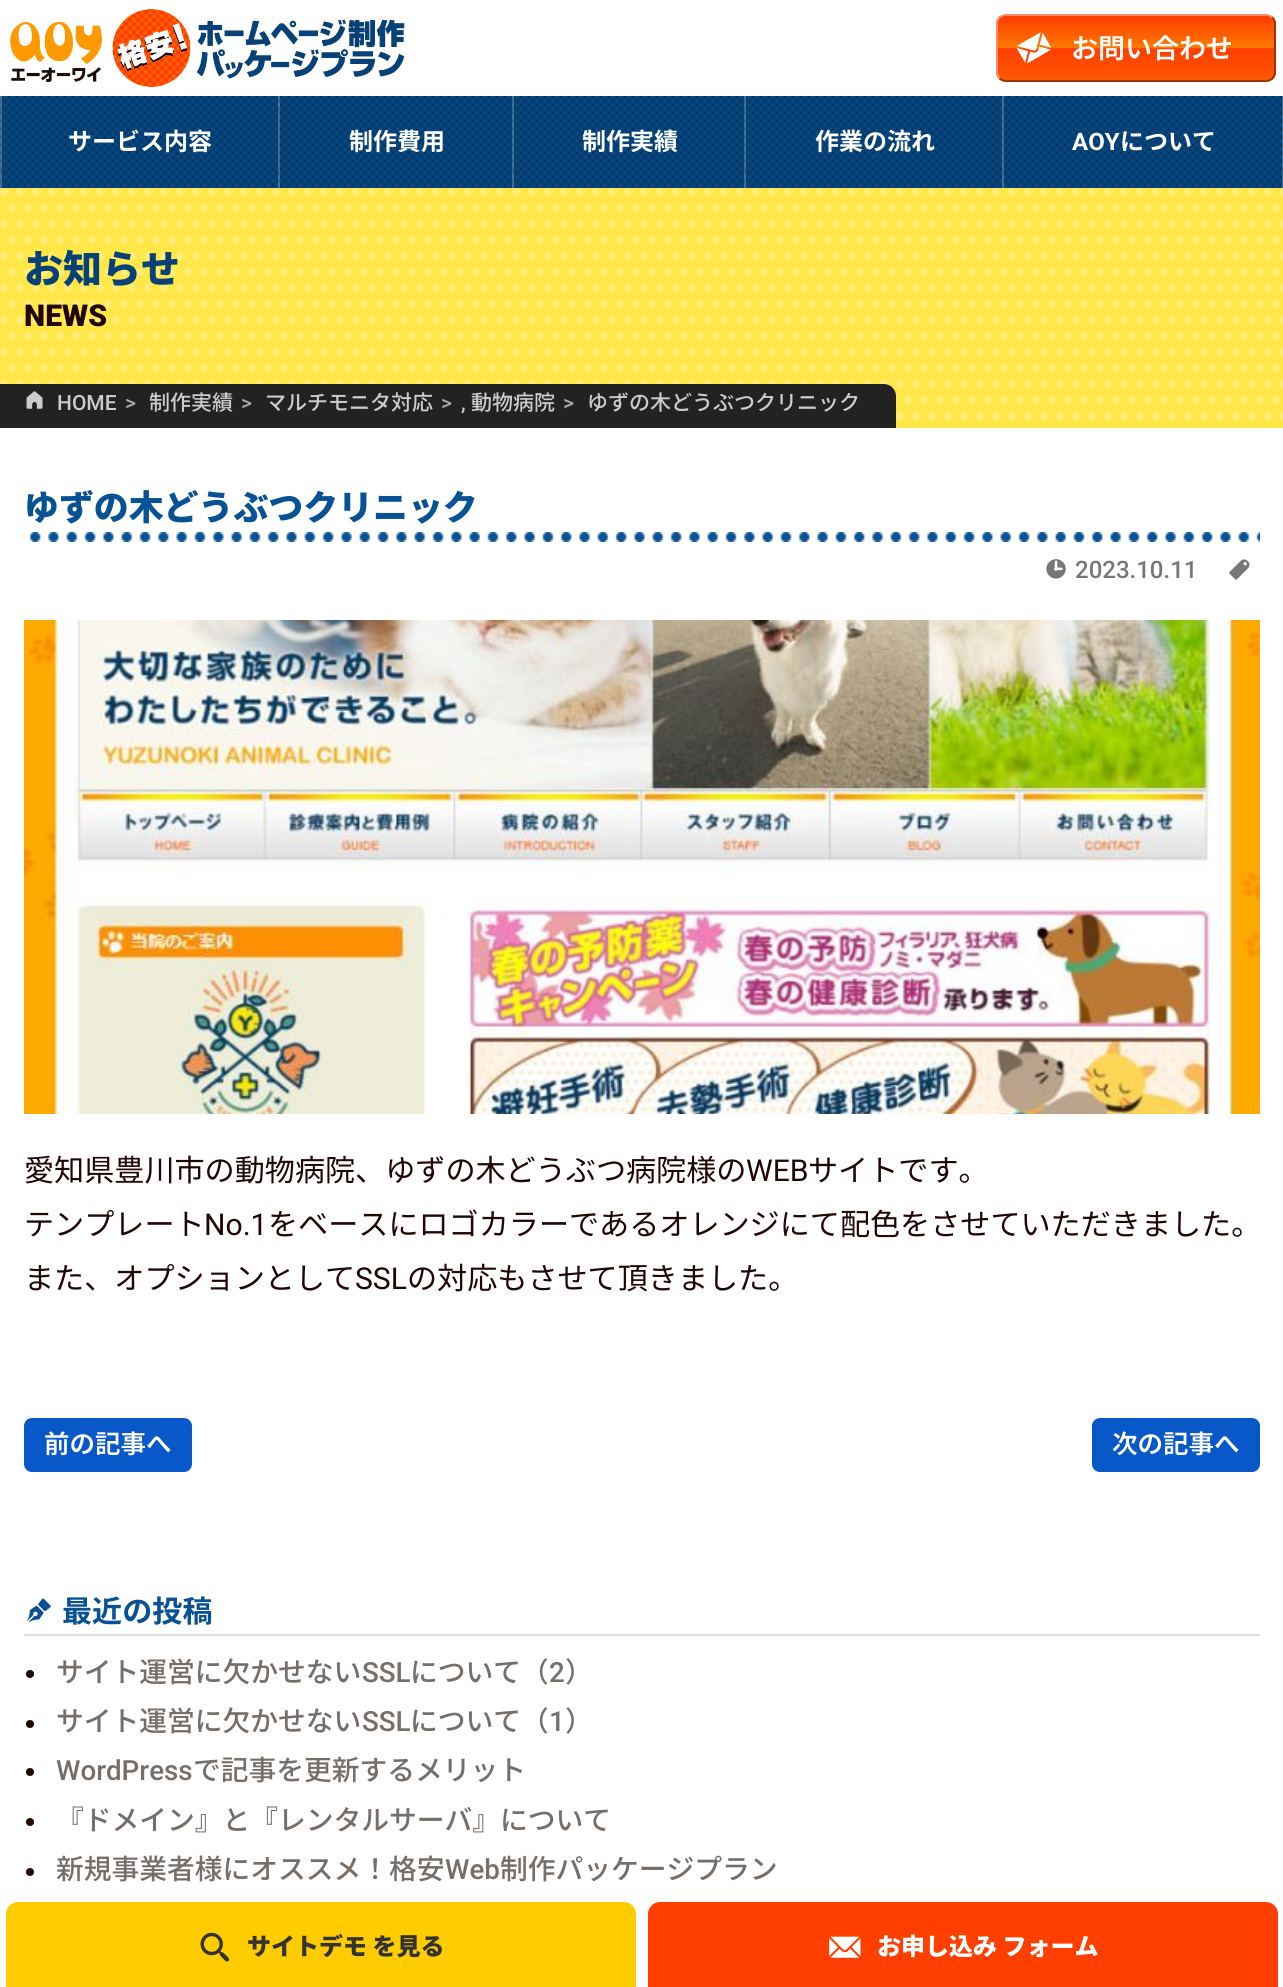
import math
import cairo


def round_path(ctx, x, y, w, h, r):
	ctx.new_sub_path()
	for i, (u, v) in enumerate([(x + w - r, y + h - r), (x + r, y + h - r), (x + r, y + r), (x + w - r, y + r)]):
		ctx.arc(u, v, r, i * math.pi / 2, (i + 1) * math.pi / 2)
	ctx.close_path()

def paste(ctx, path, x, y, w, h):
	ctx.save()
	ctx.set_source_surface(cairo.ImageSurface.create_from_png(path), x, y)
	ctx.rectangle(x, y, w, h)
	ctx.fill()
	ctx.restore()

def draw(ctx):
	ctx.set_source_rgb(1, 1, 1)
	ctx.paint()
	paste(ctx, 'media/1.png', 10, 9, 395, 78)
	ctx.save()
	round_path(ctx, 996, 14, 280, 68, 10)
	ctx.clip()
	gradient = cairo.LinearGradient(1136, 80, 1136, 16)
	gradient.add_color_stop_rgba(0, 1, 0.345, 0, 1)
	gradient.add_color_stop_rgba(0.49, 1, 0.243, 0, 1)
	gradient.add_color_stop_rgba(0.5, 1, 0.478, 0, 1)
	gradient.add_color_stop_rgba(1, 1, 0.227, 0, 1)
	ctx.set_source(gradient)
	ctx.rectangle(996, 16, 280, 64)
	ctx.fill()
	ctx.restore()
	ctx.new_path()
	ctx.move_to(1272.5, 17.5)
	ctx.curve_to(1274, 19.5, 1275, 21.5, 1275, 24)
	ctx.line_to(1275, 72)
	ctx.curve_to(1275, 74.5, 1274, 76.5, 1272.5, 78.5)
	ctx.curve_to(1270.5, 80, 1268.5, 81, 1266, 81)
	ctx.line_to(1006, 81)
	ctx.curve_to(1003.5, 81, 1001.5, 80, 999.5, 78.5)
	ctx.set_source_rgb(0.612, 0.212, 0)
	ctx.stroke()
	ctx.new_path()
	ctx.move_to(999.5, 78.5)
	ctx.curve_to(998, 76.5, 997, 74.5, 997, 72)
	ctx.line_to(997, 24)
	ctx.curve_to(997, 21.5, 998, 19.5, 999.5, 17.5)
	ctx.curve_to(1001.5, 16, 1003.5, 15, 1006, 15)
	ctx.line_to(1266, 15)
	ctx.curve_to(1268.5, 15, 1270.5, 16, 1272.5, 17.5)
	ctx.set_source_rgb(1, 0.549, 0.42)
	ctx.stroke()
	paste(ctx, 'media/2.png', 1016, 32, 36, 32)
	ctx.select_font_face('Noto Sans JP SemiBold')
	ctx.set_font_size(27)
	ctx.set_source_rgb(1, 1, 1)
	ctx.move_to(1071, 58)
	ctx.show_text('お問い合わせ')
	paste(ctx, 'media/3.png', 2, 96, 1280, 92)
	paste(ctx, 'media/4.png', 0, 96, 2, 92)
	paste(ctx, 'media/4.png', 278, 96, 2, 92)
	ctx.select_font_face('Noto Sans JP', cairo.FONT_SLANT_NORMAL, cairo.FONT_WEIGHT_BOLD)
	ctx.set_font_size(24)
	ctx.move_to(68, 150)
	ctx.show_text('サービス内容')
	paste(ctx, 'media/4.png', 512, 96, 2, 92)
	ctx.move_to(349, 150)
	ctx.show_text('制作費用')
	paste(ctx, 'media/4.png', 744, 96, 2, 92)
	ctx.move_to(582, 150)
	ctx.show_text('制作実績')
	paste(ctx, 'media/4.png', 1002, 96, 2, 92)
	ctx.move_to(815, 150)
	ctx.show_text('作業の流れ')
	paste(ctx, 'media/5.png', 1282, 96, 1, 92)
	ctx.select_font_face('Roboto', cairo.FONT_SLANT_NORMAL, cairo.FONT_WEIGHT_BOLD)
	ctx.move_to(1072, 150)
	ctx.show_text('AOY')
	ctx.select_font_face('Noto Sans JP', cairo.FONT_SLANT_NORMAL, cairo.FONT_WEIGHT_BOLD)
	ctx.move_to(1120, 150)
	ctx.show_text('について')
	paste(ctx, 'media/6.png', 0, 188, 1283, 240)
	ctx.set_source_rgb(0.133, 0.133, 0.133)
	ctx.rectangle(0, 384, 24, 44)
	ctx.fill()
	ctx.select_font_face('Noto Sans JP Black')
	ctx.set_font_size(39)
	ctx.set_source_rgb(0.024, 0.255, 0.467)
	ctx.move_to(24, 283)
	ctx.show_text('お知らせ')
	ctx.select_font_face('Roboto Black')
	ctx.set_font_size(30.1)
	ctx.set_source_rgb(0.129, 0.024, 0.024)
	ctx.move_to(24, 326)
	ctx.show_text('NEWS')
	ctx.set_source_rgb(0.133, 0.133, 0.133)
	ctx.new_path()
	ctx.move_to(24, 384)
	ctx.line_to(884, 384)
	ctx.curve_to(890.5, 384, 896, 389.5, 896, 396)
	ctx.line_to(896, 428)
	ctx.line_to(24, 428)
	ctx.close_path()
	ctx.fill()
	paste(ctx, 'media/7.png', 26, 391, 17, 18)
	ctx.select_font_face('Roboto Medium')
	ctx.set_font_size(21)
	ctx.set_source_rgb(0.8, 0.8, 0.8)
	ctx.move_to(57, 410)
	ctx.show_text('HOME')
	ctx.set_source_rgb(0.667, 0.667, 0.667)
	ctx.move_to(125, 410)
	ctx.show_text('>')
	ctx.select_font_face('Noto Sans JP Medium')
	ctx.set_source_rgb(0.8, 0.8, 0.8)
	ctx.move_to(149, 410)
	ctx.show_text('制作実績')
	ctx.select_font_face('Roboto Medium')
	ctx.set_source_rgb(0.667, 0.667, 0.667)
	ctx.move_to(241, 410)
	ctx.show_text('>')
	ctx.select_font_face('Noto Sans JP Medium')
	ctx.set_source_rgb(0.8, 0.8, 0.8)
	ctx.move_to(265, 410)
	ctx.show_text('マルチモニタ対応')
	ctx.select_font_face('Roboto Medium')
	ctx.set_source_rgb(0.667, 0.667, 0.667)
	ctx.move_to(441, 410)
	ctx.show_text('>')
	ctx.set_source_rgb(0.8, 0.8, 0.8)
	ctx.move_to(461, 410)
	ctx.show_text(',')
	ctx.select_font_face('Noto Sans JP Medium')
	ctx.move_to(471, 410)
	ctx.show_text('動物病院')
	ctx.select_font_face('Roboto Medium')
	ctx.set_source_rgb(0.667, 0.667, 0.667)
	ctx.move_to(563, 410)
	ctx.show_text('>')
	ctx.select_font_face('Noto Sans JP Medium')
	ctx.set_source_rgb(0.8, 0.8, 0.8)
	ctx.move_to(587, 410)
	ctx.show_text('ゆずの木どうぶつクリニック')
	paste(ctx, 'media/8.png', 29, 532, 1231, 10)
	ctx.select_font_face('Noto Sans JP Black')
	ctx.set_font_size(34.9)
	ctx.set_source_rgb(0.031, 0.318, 0.584)
	ctx.move_to(24, 520)
	ctx.show_text('ゆずの木どうぶつクリニック')
	paste(ctx, 'media/9.png', 1046, 559, 20, 20)
	ctx.select_font_face('Roboto Medium')
	ctx.set_font_size(24)
	ctx.set_source_rgb(0.467, 0.467, 0.467)
	ctx.move_to(1075, 578)
	ctx.show_text('2023.10.11')
	paste(ctx, 'media/10.png', 1229, 559, 21, 21)
	paste(ctx, 'media/11.png', 24, 620, 1236, 494)
	ctx.select_font_face('Noto Sans JP')
	ctx.set_font_size(30.1)
	ctx.set_source_rgb(0.129, 0.024, 0.024)
	ctx.move_to(24, 1181)
	ctx.show_text('愛知県豊川市の動物病院、ゆずの木どうぶつ病院様の')
	ctx.select_font_face('Roboto')
	ctx.move_to(746, 1181)
	ctx.show_text('WEB')
	ctx.select_font_face('Noto Sans JP')
	ctx.move_to(808, 1181)
	ctx.show_text('サイトです。')
	ctx.move_to(24, 1235)
	ctx.show_text('テンプレート')
	ctx.select_font_face('Roboto')
	ctx.move_to(204, 1235)
	ctx.show_text('No.1')
	ctx.select_font_face('Noto Sans JP')
	ctx.move_to(268, 1235)
	ctx.show_text('をベースにロゴカラーであるオレンジにて配色をさせていただきました。')
	ctx.move_to(24, 1289)
	ctx.show_text('また、オプションとして')
	ctx.select_font_face('Roboto')
	ctx.move_to(355, 1289)
	ctx.show_text('SSL')
	ctx.select_font_face('Noto Sans JP')
	ctx.move_to(407, 1289)
	ctx.show_text('の対応もさせて頂きました。')
	ctx.set_source_rgb(0.039, 0.345, 0.792)
	round_path(ctx, 24, 1418, 168, 54, 8)
	ctx.fill()
	ctx.select_font_face('Noto Sans JP SemiBold')
	ctx.set_font_size(25.5)
	ctx.set_source_rgb(1, 1, 1)
	ctx.move_to(44, 1453)
	ctx.show_text('前の記事へ')
	ctx.set_source_rgb(0.039, 0.345, 0.792)
	round_path(ctx, 1092, 1418, 168, 54, 8)
	ctx.fill()
	ctx.set_source_rgb(1, 1, 1)
	ctx.move_to(1112, 1453)
	ctx.show_text('次の記事へ')
	ctx.set_source_rgb(0.867, 0.867, 0.867)
	ctx.rectangle(24, 1634, 1236, 2)
	ctx.fill()
	paste(ctx, 'media/12.png', 27, 1598, 24, 25)
	ctx.select_font_face('Noto Sans JP', cairo.FONT_SLANT_NORMAL, cairo.FONT_WEIGHT_BOLD)
	ctx.set_font_size(30.1)
	ctx.set_source_rgb(0.031, 0.318, 0.584)
	ctx.move_to(62, 1622)
	ctx.show_text('最近の投稿')
	ctx.set_source_rgb(0.129, 0.024, 0.024)
	ctx.new_path()
	ctx.arc(30, 1674, 4, 0, 2 * math.pi)
	ctx.fill()
	ctx.select_font_face('Noto Sans JP Medium')
	ctx.set_font_size(27.75)
	ctx.set_source_rgb(0.459, 0.431, 0.412)
	ctx.move_to(56, 1682)
	ctx.show_text('サイト運営に欠かせない')
	ctx.select_font_face('Roboto Medium')
	ctx.move_to(362, 1682)
	ctx.show_text('SSL')
	ctx.select_font_face('Noto Sans JP Medium')
	ctx.move_to(410, 1682)
	ctx.show_text('について（')
	ctx.select_font_face('Roboto Medium')
	ctx.move_to(549, 1682)
	ctx.show_text('2')
	ctx.select_font_face('Noto Sans JP Medium')
	ctx.move_to(565, 1682)
	ctx.show_text('）')
	ctx.set_source_rgb(0.129, 0.024, 0.024)
	ctx.new_path()
	ctx.arc(30, 1724, 4, 0, 2 * math.pi)
	ctx.fill()
	ctx.set_source_rgb(0.459, 0.431, 0.412)
	ctx.move_to(56, 1731)
	ctx.show_text('サイト運営に欠かせない')
	ctx.select_font_face('Roboto Medium')
	ctx.move_to(362, 1731)
	ctx.show_text('SSL')
	ctx.select_font_face('Noto Sans JP Medium')
	ctx.move_to(410, 1731)
	ctx.show_text('について（')
	ctx.select_font_face('Roboto Medium')
	ctx.move_to(549, 1731)
	ctx.show_text('1')
	ctx.select_font_face('Noto Sans JP Medium')
	ctx.move_to(565, 1731)
	ctx.show_text('）')
	ctx.set_source_rgb(0.129, 0.024, 0.024)
	ctx.new_path()
	ctx.arc(30, 1772, 4, 0, 2 * math.pi)
	ctx.fill()
	ctx.select_font_face('Roboto Medium')
	ctx.set_source_rgb(0.459, 0.431, 0.412)
	ctx.move_to(56, 1780)
	ctx.show_text('WordPress')
	ctx.select_font_face('Noto Sans JP Medium')
	ctx.move_to(193, 1780)
	ctx.show_text('で記事を更新するメリット')
	ctx.set_source_rgb(0.129, 0.024, 0.024)
	ctx.new_path()
	ctx.arc(30, 1822, 4, 0, 2 * math.pi)
	ctx.fill()
	ctx.set_source_rgb(0.459, 0.431, 0.412)
	ctx.move_to(56, 1830)
	ctx.show_text('『ドメイン』と『レンタルサーバ』について')
	ctx.set_source_rgb(0.129, 0.024, 0.024)
	ctx.new_path()
	ctx.arc(30, 1872, 4, 0, 2 * math.pi)
	ctx.fill()
	ctx.set_source_rgb(0.459, 0.431, 0.412)
	ctx.move_to(56, 1879)
	ctx.show_text('新規事業者様にオススメ！格安')
	ctx.select_font_face('Roboto Medium')
	ctx.move_to(445, 1879)
	ctx.show_text('Web')
	ctx.select_font_face('Noto Sans JP Medium')
	ctx.move_to(500, 1879)
	ctx.show_text('制作パッケージプラン')
	ctx.set_source_rgb(1, 0.8, 0)
	ctx.new_path()
	ctx.move_to(18, 1902)
	ctx.line_to(624, 1902)
	ctx.curve_to(630.5, 1902, 636, 1907.5, 636, 1914)
	ctx.line_to(636, 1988)
	ctx.line_to(6, 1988)
	ctx.line_to(6, 1914)
	ctx.curve_to(6, 1907.5, 11.5, 1902, 18, 1902)
	ctx.close_path()
	ctx.fill()
	paste(ctx, 'media/13.png', 200, 1932, 30, 30)
	ctx.select_font_face('Noto Sans JP Black')
	ctx.set_font_size(24)
	ctx.set_source_rgb(0.2, 0.2, 0.2)
	ctx.move_to(247, 1955)
	ctx.show_text('サイトデモ を見る')
	ctx.set_source_rgb(1, 0.247, 0)
	ctx.new_path()
	ctx.move_to(660, 1902)
	ctx.line_to(1266, 1902)
	ctx.curve_to(1272.5, 1902, 1278, 1907.5, 1278, 1914)
	ctx.line_to(1278, 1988)
	ctx.line_to(648, 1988)
	ctx.line_to(648, 1914)
	ctx.curve_to(648, 1907.5, 653.5, 1902, 660, 1902)
	ctx.close_path()
	ctx.fill()
	paste(ctx, 'media/14.png', 829, 1936, 32, 22)
	ctx.set_source_rgb(1, 1, 1)
	ctx.move_to(877, 1955)
	ctx.show_text('お申し込み フォーム')


surface = cairo.ImageSurface(cairo.FORMAT_RGB24, 1283, 1987)
ctx = cairo.Context(surface)
options = cairo.FontOptions()
options.set_hint_metrics(cairo.HINT_METRICS_OFF)
options.set_hint_style(cairo.HINT_STYLE_NONE)
ctx.set_font_options(options)
ctx.set_miter_limit(4)
draw(ctx)
surface.write_to_png('image.png')
